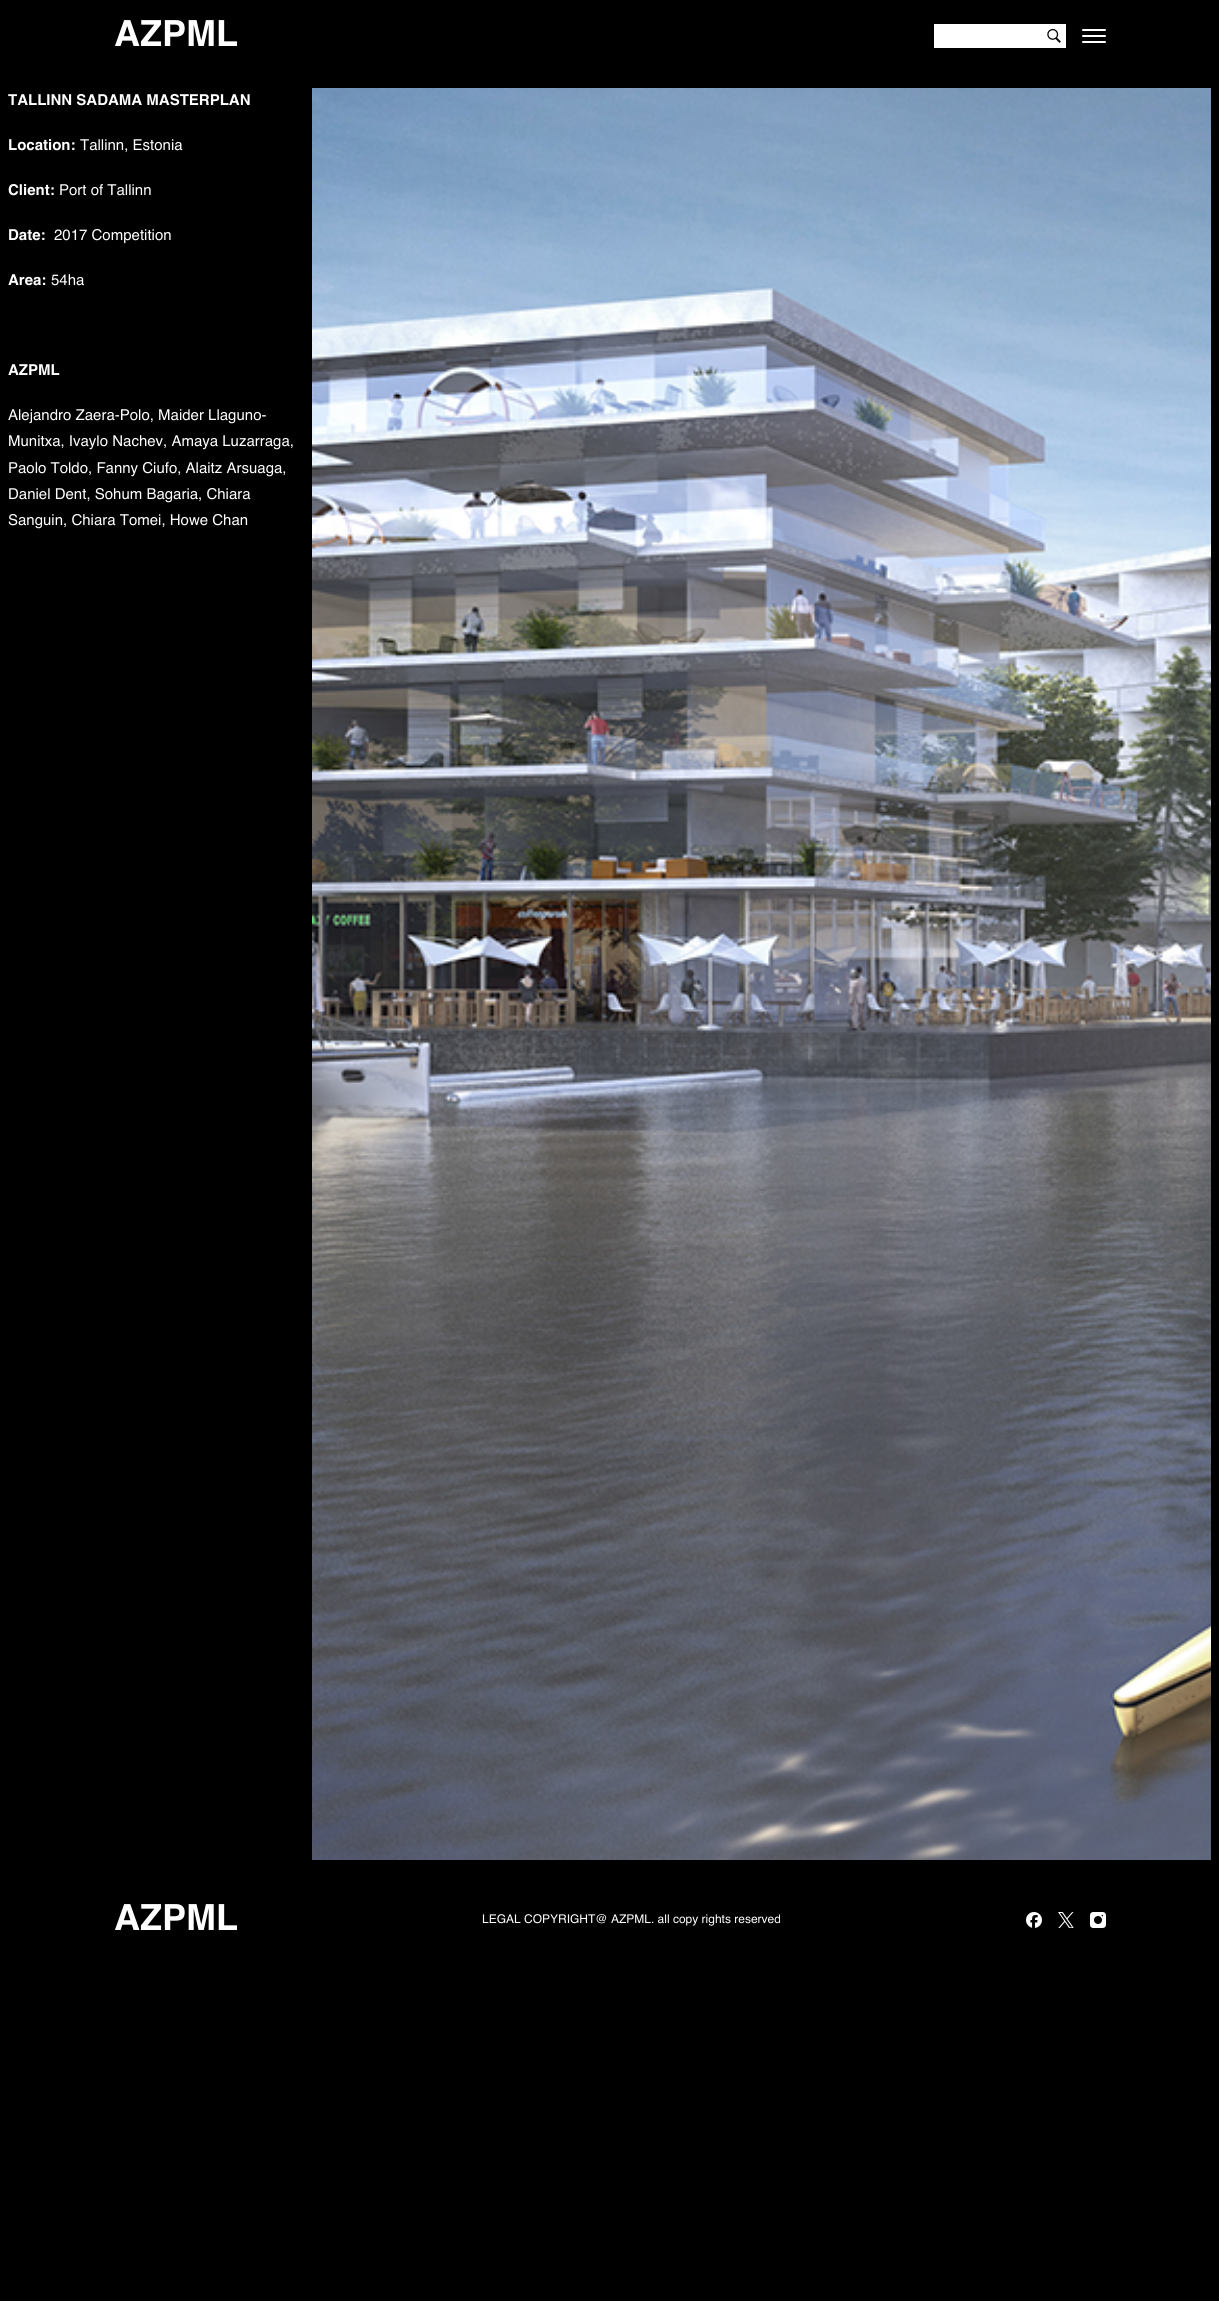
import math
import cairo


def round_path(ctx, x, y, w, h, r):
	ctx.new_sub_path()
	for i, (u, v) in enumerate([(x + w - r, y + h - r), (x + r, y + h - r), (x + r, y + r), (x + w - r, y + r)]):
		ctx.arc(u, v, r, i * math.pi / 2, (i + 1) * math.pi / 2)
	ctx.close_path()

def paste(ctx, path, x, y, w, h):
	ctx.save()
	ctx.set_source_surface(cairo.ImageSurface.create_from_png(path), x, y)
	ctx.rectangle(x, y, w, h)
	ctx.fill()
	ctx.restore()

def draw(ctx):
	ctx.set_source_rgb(0, 0, 0)
	ctx.paint()
	ctx.select_font_face('Helvetica', cairo.FONT_SLANT_NORMAL, cairo.FONT_WEIGHT_BOLD)
	ctx.set_font_size(36)
	ctx.set_source_rgb(1, 1, 1)
	ctx.move_to(114, 46)
	ctx.show_text('AZPML')
	ctx.rectangle(934, 24, 132, 24)
	ctx.fill()
	paste(ctx, 'media/1.png', 1047, 29, 14, 14)
	round_path(ctx, 1082, 29, 24, 2, 1)
	ctx.fill()
	round_path(ctx, 1082, 35, 24, 2, 1)
	ctx.fill()
	round_path(ctx, 1082, 41, 24, 2, 1)
	ctx.fill()
	ctx.set_font_size(15)
	ctx.move_to(8, 105)
	ctx.show_text('TALLINN SADAMA MASTERPLAN')
	ctx.move_to(8, 150)
	ctx.show_text('Location:')
	ctx.select_font_face('Helvetica')
	ctx.move_to(80, 150)
	ctx.show_text('Tallinn, Estonia')
	ctx.select_font_face('Helvetica', cairo.FONT_SLANT_NORMAL, cairo.FONT_WEIGHT_BOLD)
	ctx.move_to(8, 195)
	ctx.show_text('Client:')
	ctx.select_font_face('Helvetica')
	ctx.move_to(59, 195)
	ctx.show_text('Port of Tallinn')
	ctx.select_font_face('Helvetica', cairo.FONT_SLANT_NORMAL, cairo.FONT_WEIGHT_BOLD)
	ctx.move_to(8, 240)
	ctx.show_text('Date:')
	ctx.select_font_face('Helvetica')
	ctx.move_to(54, 240)
	ctx.show_text('2017 Competition')
	ctx.select_font_face('Helvetica', cairo.FONT_SLANT_NORMAL, cairo.FONT_WEIGHT_BOLD)
	ctx.move_to(8, 285)
	ctx.show_text('Area:')
	ctx.select_font_face('Helvetica')
	ctx.move_to(51, 285)
	ctx.show_text('54ha')
	ctx.select_font_face('Helvetica', cairo.FONT_SLANT_NORMAL, cairo.FONT_WEIGHT_BOLD)
	ctx.move_to(8, 375)
	ctx.show_text('AZPML')
	ctx.select_font_face('Helvetica')
	for x, y, s in [
		(8, 420, 'Alejandro Zaera-Polo, Maider Llaguno-'),
		(8, 446, 'Munitxa, Ivaylo Nachev, Amaya Luzarraga,'),
		(8, 473, 'Paolo Toldo, Fanny Ciufo, Alaitz Arsuaga,'),
		(8, 499, 'Daniel Dent, Sohum Bagaria, Chiara'),
		(8, 525, 'Sanguin, Chiara Tomei, Howe Chan'),
	]:
		ctx.move_to(x, y)
		ctx.show_text(s)
	paste(ctx, 'media/2.png', 312, 88, 899, 1772)
	ctx.select_font_face('Helvetica', cairo.FONT_SLANT_NORMAL, cairo.FONT_WEIGHT_BOLD)
	ctx.set_font_size(36)
	ctx.move_to(114, 1930)
	ctx.show_text('AZPML')
	ctx.select_font_face('Helvetica')
	ctx.set_font_size(12)
	ctx.move_to(482, 1923)
	ctx.show_text('LEGAL COPYRIGHT@ AZPML. all copy rights reserved')
	paste(ctx, 'media/3.png', 1026, 1912, 16, 16)
	paste(ctx, 'media/4.png', 1058, 1912, 16, 16)
	paste(ctx, 'media/5.png', 1090, 1912, 16, 16)


surface = cairo.ImageSurface(cairo.FORMAT_RGB24, 1219, 2301)
ctx = cairo.Context(surface)
options = cairo.FontOptions()
options.set_hint_metrics(cairo.HINT_METRICS_OFF)
options.set_hint_style(cairo.HINT_STYLE_NONE)
ctx.set_font_options(options)
ctx.set_miter_limit(4)
draw(ctx)
surface.write_to_png('image.png')
